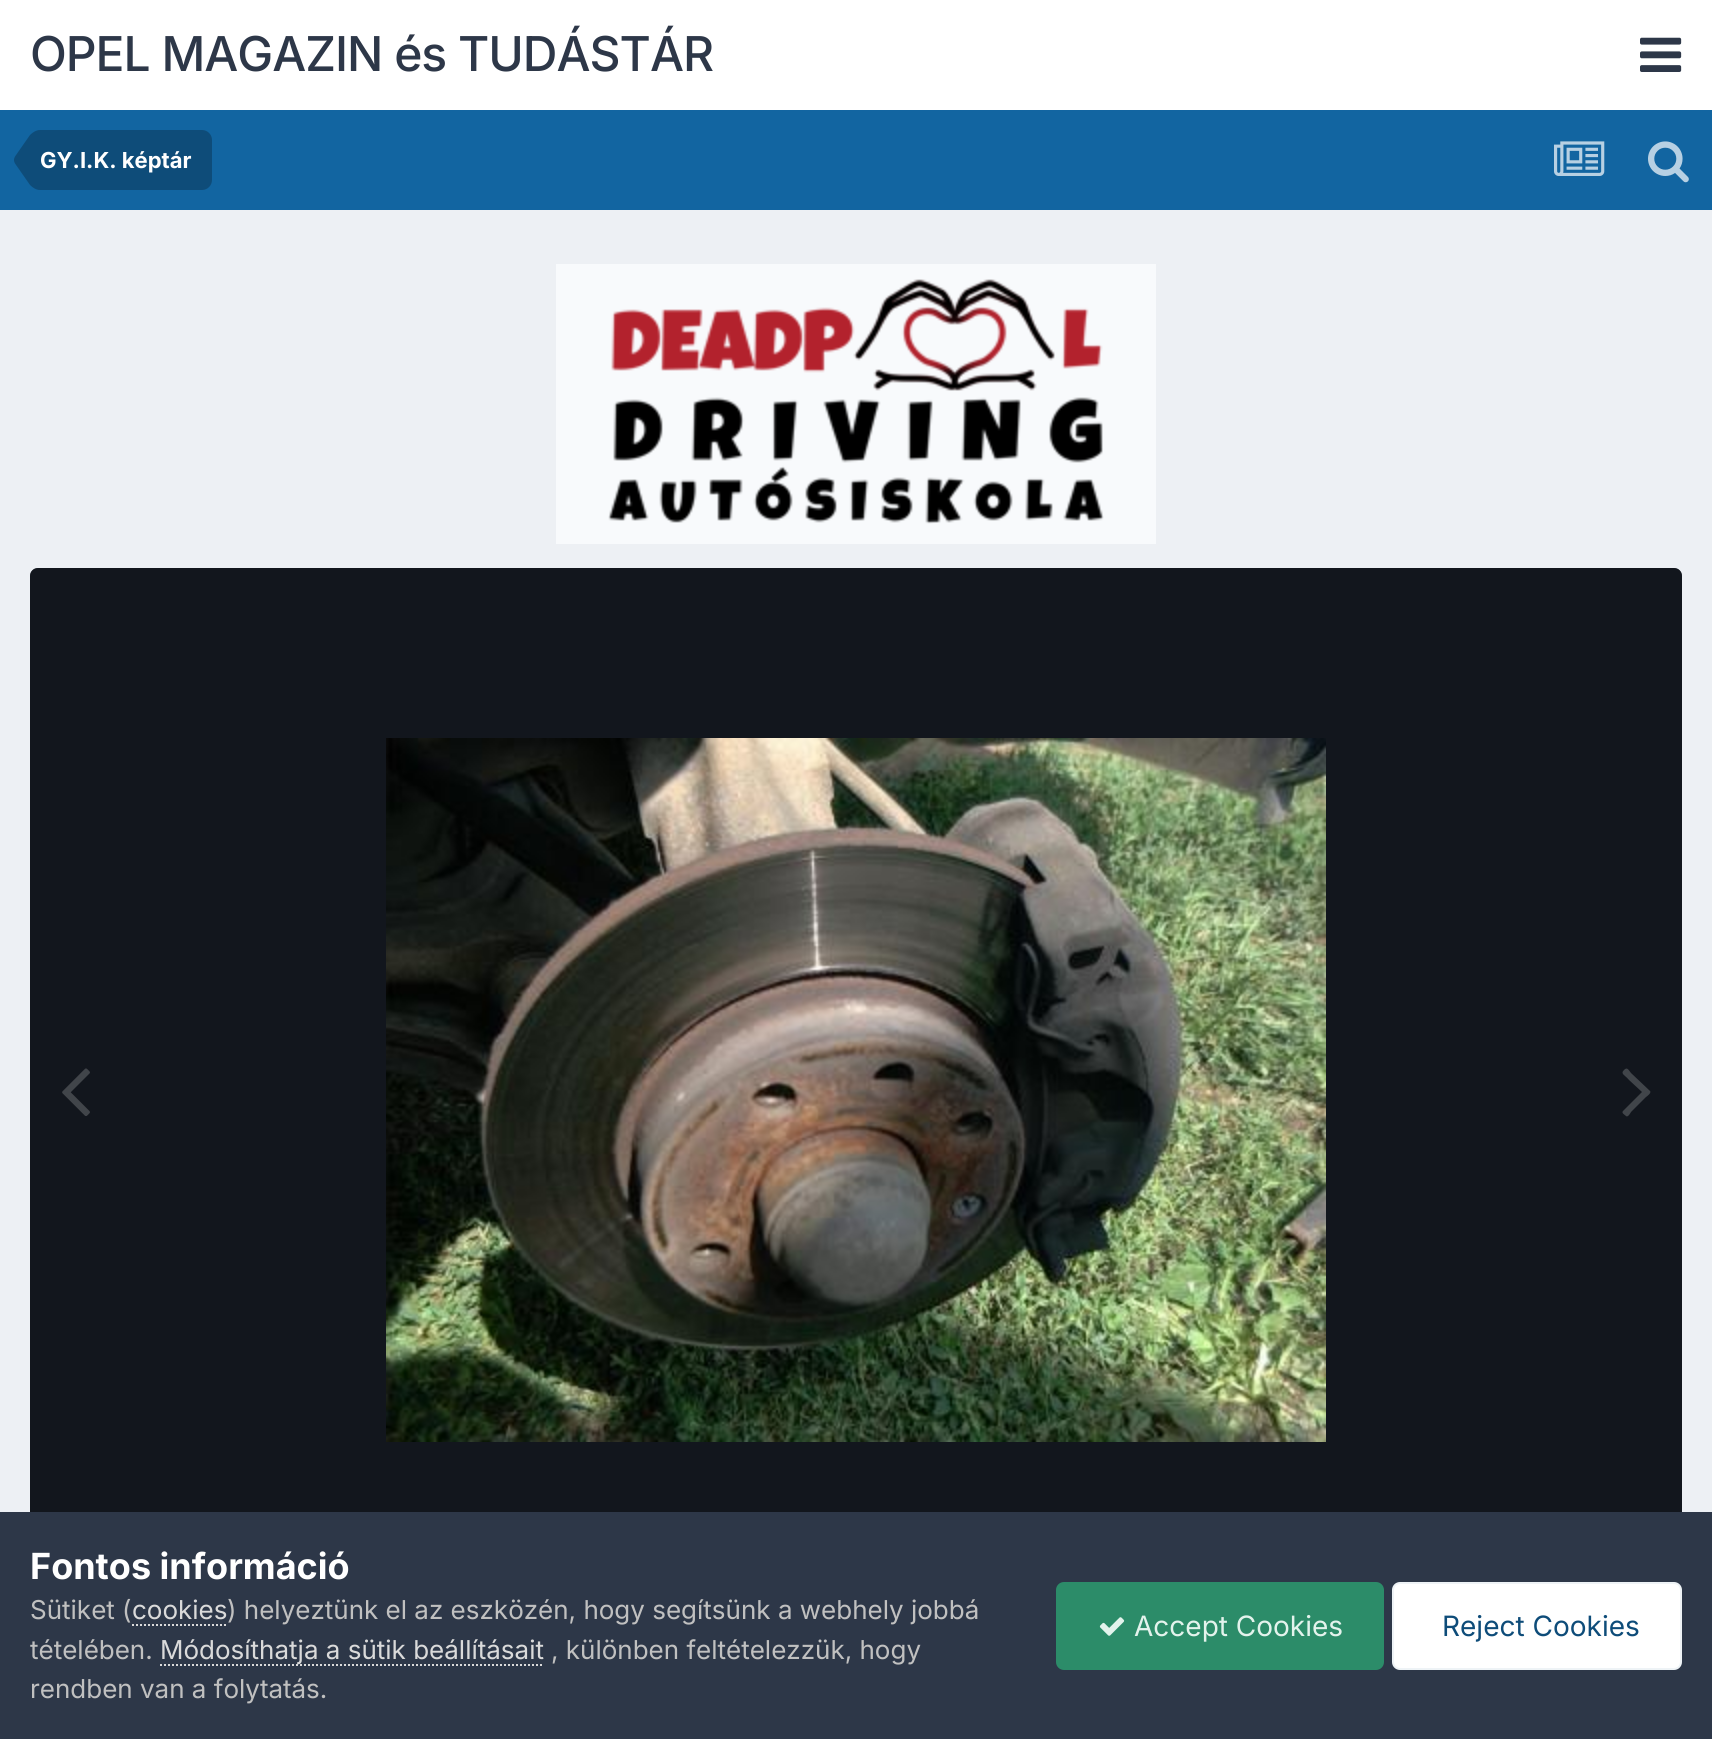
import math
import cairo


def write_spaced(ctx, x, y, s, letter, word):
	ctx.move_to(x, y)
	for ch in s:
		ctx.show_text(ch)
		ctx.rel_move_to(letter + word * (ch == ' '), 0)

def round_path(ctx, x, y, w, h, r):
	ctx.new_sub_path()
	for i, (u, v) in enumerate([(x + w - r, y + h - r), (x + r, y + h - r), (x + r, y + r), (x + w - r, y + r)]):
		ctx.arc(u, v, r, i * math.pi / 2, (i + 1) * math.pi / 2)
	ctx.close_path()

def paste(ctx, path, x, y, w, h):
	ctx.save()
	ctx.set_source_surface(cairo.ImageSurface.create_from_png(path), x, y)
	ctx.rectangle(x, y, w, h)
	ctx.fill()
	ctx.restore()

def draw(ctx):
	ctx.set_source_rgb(0.929, 0.941, 0.957)
	ctx.paint()
	ctx.set_source_rgb(1, 1, 1)
	ctx.rectangle(0, 0, 1712, 110)
	ctx.fill()
	ctx.select_font_face('Inter Medium')
	ctx.set_font_size(48)
	ctx.set_source_rgb(0.176, 0.216, 0.282)
	write_spaced(ctx, 30, 71, 'OPEL MAGAZIN és TUDÁSTÁR', -1, 0)
	paste(ctx, 'media/1.png', 1640, 37, 42, 35)
	ctx.set_source_rgb(0.071, 0.396, 0.631)
	ctx.rectangle(0, 110, 1712, 100)
	ctx.fill()
	ctx.set_source_rgb(0.055, 0.298, 0.475)
	ctx.new_path()
	ctx.move_to(40, 130)
	ctx.line_to(202, 130)
	ctx.curve_to(207.5, 130, 212, 134.5, 212, 140)
	ctx.line_to(212, 180)
	ctx.curve_to(212, 185.5, 207.5, 190, 202, 190)
	ctx.line_to(40, 190)
	ctx.close_path()
	ctx.fill()
	ctx.new_path()
	ctx.move_to(40, 160)
	ctx.line_to(40, 190)
	ctx.curve_to(36.5, 190, 33, 188, 30, 185)
	ctx.line_to(15, 163.5)
	ctx.curve_to(14.5, 162.5, 14, 161.5, 14, 160)
	ctx.close_path()
	ctx.move_to(40, 160)
	ctx.line_to(14, 160)
	ctx.curve_to(14, 158.5, 14.5, 157.5, 15, 156.5)
	ctx.line_to(30, 135)
	ctx.curve_to(33, 132, 36.5, 130, 40, 130)
	ctx.close_path()
	ctx.fill()
	ctx.select_font_face('Inter', cairo.FONT_SLANT_NORMAL, cairo.FONT_WEIGHT_BOLD)
	ctx.set_font_size(22)
	ctx.set_source_rgb(1, 1, 1)
	ctx.move_to(40, 168)
	ctx.show_text('GY.I.K. képtár')
	paste(ctx, 'media/2.png', 1554, 141, 51, 35)
	paste(ctx, 'media/3.png', 1648, 141, 41, 42)
	ctx.set_source_rgb(0.969, 0.98, 0.988)
	ctx.rectangle(556, 264, 600, 280)
	ctx.fill()
	paste(ctx, 'media/4.png', 608, 279, 496, 245)
	ctx.set_source_rgb(0.176, 0.216, 0.282)
	ctx.new_path()
	ctx.move_to(38, 568)
	ctx.line_to(1674, 568)
	ctx.curve_to(1678.5, 568, 1682, 571.5, 1682, 576)
	ctx.line_to(1682, 1612)
	ctx.line_to(30, 1612)
	ctx.line_to(30, 576)
	ctx.curve_to(30, 571.5, 33.5, 568, 38, 568)
	ctx.close_path()
	ctx.fill()
	ctx.set_source_rgba(0, 0, 0, 0.6)
	ctx.new_path()
	ctx.move_to(38, 568)
	ctx.line_to(1674, 568)
	ctx.curve_to(1678.5, 568, 1682, 571.5, 1682, 576)
	ctx.line_to(1682, 1612)
	ctx.line_to(30, 1612)
	ctx.line_to(30, 576)
	ctx.curve_to(30, 571.5, 33.5, 568, 38, 568)
	ctx.close_path()
	ctx.fill()
	paste(ctx, 'media/5.png', 386, 738, 940, 704)
	paste(ctx, 'media/6.png', 62, 1068, 28, 48)
	ctx.set_source_rgb(0.255, 0.271, 0.29)
	ctx.new_path()
	ctx.move_to(1650, 1091)
	ctx.curve_to(1652, 1093, 1646, 1097, 1646, 1097)
	ctx.line_to(1631, 1112)
	ctx.curve_to(1631, 1112, 1628, 1118, 1626, 1116)
	ctx.curve_to(1625, 1115, 1621, 1113, 1623, 1111)
	ctx.line_to(1642, 1092)
	ctx.line_to(1629, 1080)
	ctx.curve_to(1625, 1075, 1620, 1074, 1624, 1070)
	ctx.curve_to(1627, 1067, 1628, 1069, 1631, 1073)
	ctx.close_path()
	ctx.fill()
	ctx.set_source_rgb(0.176, 0.216, 0.282)
	ctx.rectangle(0, 1512, 1712, 227)
	ctx.fill()
	ctx.set_font_size(36)
	ctx.set_source_rgb(1, 1, 1)
	ctx.move_to(30, 1579)
	ctx.show_text('Fontos információ')
	ctx.select_font_face('Inter')
	ctx.set_font_size(26)
	ctx.set_source_rgb(0.753, 0.753, 0.753)
	ctx.move_to(30, 1619)
	ctx.show_text('Sütiket (')
	ctx.set_source_rgb(0.855, 0.855, 0.855)
	ctx.move_to(132, 1619)
	ctx.show_text('cookies')
	ctx.new_path()
	ctx.move_to(132, 1625)
	ctx.line_to(228, 1625)
	ctx.set_dash([2, 2])
	ctx.stroke()
	ctx.set_source_rgb(0.753, 0.753, 0.753)
	ctx.move_to(227, 1619)
	ctx.show_text(') helyeztünk el az eszközén, hogy segítsünk a webhely jobbá')
	ctx.move_to(30, 1659)
	ctx.show_text('tételében.')
	ctx.new_path()
	ctx.move_to(160, 1665)
	ctx.line_to(544, 1665)
	ctx.set_source_rgb(0.855, 0.855, 0.855)
	ctx.stroke()
	ctx.move_to(160, 1659)
	ctx.show_text('Módosíthatja a sütik beállításait')
	ctx.set_source_rgb(0.753, 0.753, 0.753)
	ctx.move_to(551, 1659)
	ctx.show_text(', különben feltételezzük, hogy')
	ctx.move_to(30, 1698)
	ctx.show_text('rendben van a folytatás.')
	ctx.set_source_rgb(0.173, 0.549, 0.412)
	round_path(ctx, 1056, 1582, 328, 88, 8)
	ctx.fill()
	paste(ctx, 'media/7.png', 1099, 1617, 26, 19)
	ctx.set_font_size(28)
	ctx.set_source_rgb(0.89, 0.953, 0.925)
	ctx.move_to(1134, 1636)
	ctx.show_text('Accept Cookies')
	ctx.set_source_rgb(1, 1, 1)
	round_path(ctx, 1392, 1582, 290, 88, 8)
	ctx.fill()
	round_path(ctx, 1393, 1583, 288, 86, 7)
	ctx.set_source_rgba(0.055, 0.298, 0.475, 0.07)
	ctx.set_dash([])
	ctx.stroke()
	ctx.set_source_rgb(0.055, 0.298, 0.475)
	ctx.move_to(1442, 1636)
	ctx.show_text('Reject Cookies')


surface = cairo.ImageSurface(cairo.FORMAT_RGB24, 1712, 1739)
ctx = cairo.Context(surface)
options = cairo.FontOptions()
options.set_hint_metrics(cairo.HINT_METRICS_OFF)
options.set_hint_style(cairo.HINT_STYLE_NONE)
ctx.set_font_options(options)
ctx.set_miter_limit(4)
draw(ctx)
surface.write_to_png('image.png')
